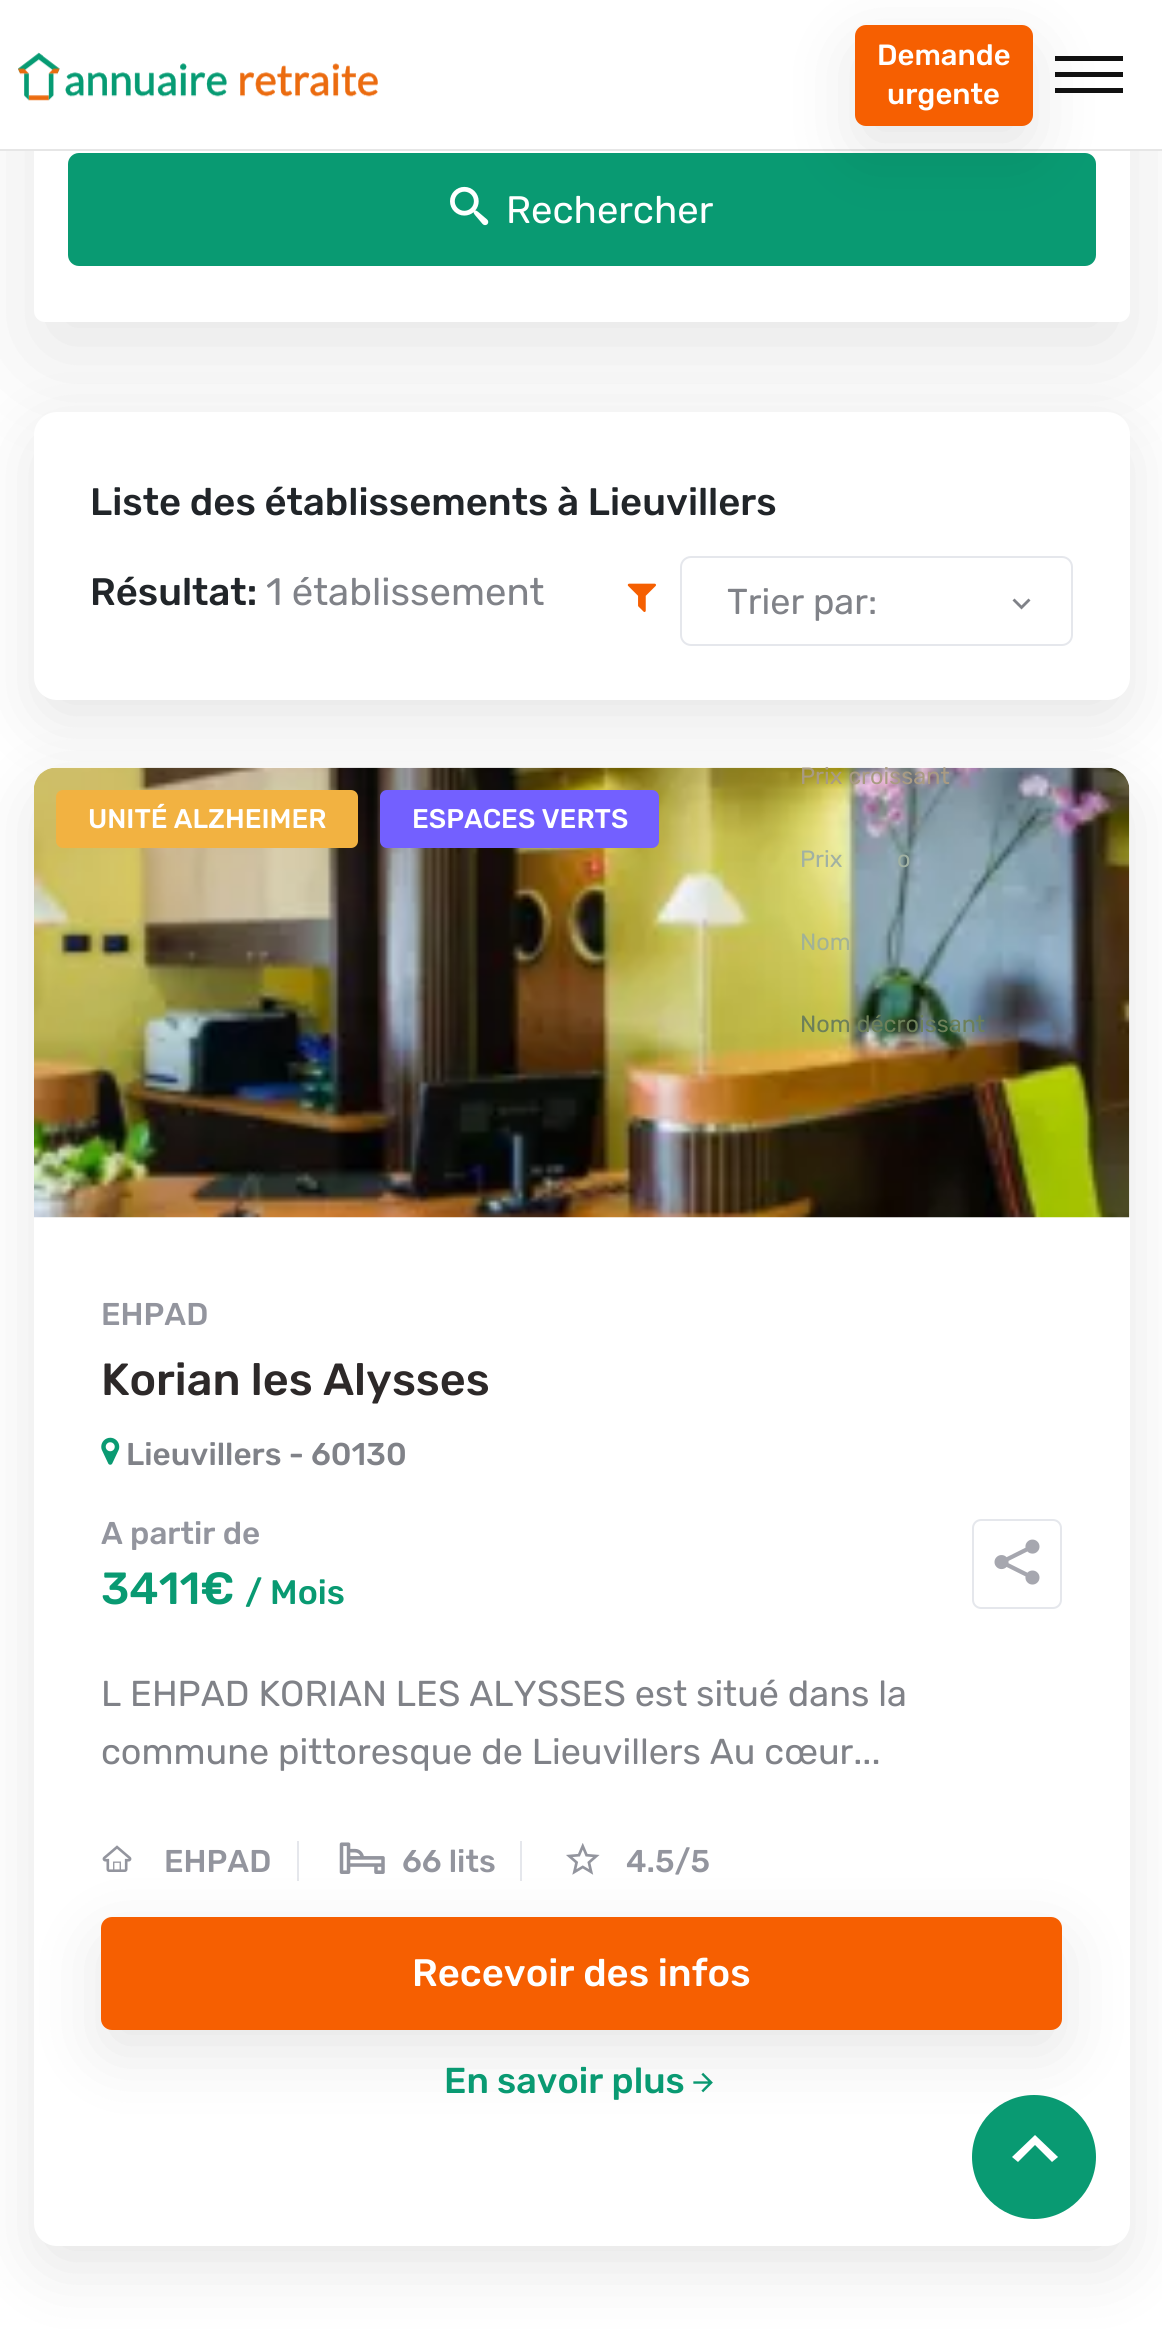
import math
import cairo


def round_path(ctx, x, y, w, h, r):
	ctx.new_sub_path()
	for i, (u, v) in enumerate([(x + w - r, y + h - r), (x + r, y + h - r), (x + r, y + r), (x + w - r, y + r)]):
		ctx.arc(u, v, r, i * math.pi / 2, (i + 1) * math.pi / 2)
	ctx.close_path()

def blur_box(ctx, x, y, w, h, r, blur, alpha):
	ctx.push_group_with_content(cairo.CONTENT_ALPHA)
	ctx.set_operator(cairo.OPERATOR_SOURCE)
	for i in range(15, -16, -2):
		e = blur * i / 6
		if min(w, h) + 2 * e > 0:
			ctx.set_source_rgba(0, 0, 0, alpha * math.erfc((i - 1) / 8.5) / 2)
			round_path(ctx, x - e, y - e, w + 2 * e, h + 2 * e, max(0, min(r + e + blur * .6, min(w, h) / 2 + e)))
			ctx.fill()
	ctx.mask(ctx.pop_group())

def paste(ctx, path, x, y, w, h):
	ctx.save()
	ctx.set_source_surface(cairo.ImageSurface.create_from_png(path), x, y)
	ctx.rectangle(x, y, w, h)
	ctx.fill()
	ctx.restore()

def draw(ctx):
	ctx.set_source_rgb(1, 1, 1)
	ctx.paint()
	ctx.set_source_rgb(0, 0, 0)
	blur_box(ctx, 34, -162, 1096, 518, 11, 56, 0.1)
	ctx.set_source_rgb(1, 1, 1)
	round_path(ctx, 34, -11, 1096, 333, 11)
	ctx.fill()
	ctx.rectangle(0, 0, 1162, 149)
	ctx.fill()
	ctx.set_source_rgb(0.902, 0.902, 0.902)
	ctx.rectangle(0, 149, 1162, 2)
	ctx.fill()
	paste(ctx, 'media/1.png', 18, 52, 360, 49)
	ctx.set_source_rgb(0.067, 0.067, 0.067)
	ctx.rectangle(1055, 56, 68, 5)
	ctx.rectangle(1055, 72, 68, 5)
	ctx.rectangle(1055, 88, 68, 5)
	ctx.fill()
	ctx.set_source_rgb(0.039, 0.604, 0.447)
	round_path(ctx, 68, 153, 1028, 113, 11)
	ctx.fill()
	ctx.set_source_rgb(0, 0, 0)
	blur_box(ctx, 855, 47, 178, 102, 11, 34, 0.1)
	ctx.set_source_rgb(0.961, 0.373, 0.004)
	round_path(ctx, 857.5, 27.5, 173, 96, 8.5)
	ctx.fill_preserve()
	ctx.set_line_width(5)
	ctx.stroke()
	ctx.select_font_face('Rubik Medium')
	ctx.set_font_size(29.25)
	ctx.set_source_rgb(1, 1, 1)
	ctx.move_to(877, 65)
	ctx.show_text('Demande')
	ctx.move_to(887, 104)
	ctx.show_text('urgente')
	paste(ctx, 'media/2.png', 450, 186, 39, 40)
	ctx.select_font_face('Rubik')
	ctx.set_font_size(38.25)
	ctx.move_to(506, 223)
	ctx.show_text('Rechercher')
	ctx.set_source_rgb(0, 0, 0)
	blur_box(ctx, 34, 434, 1096, 288, 23, 34, 0.1)
	ctx.set_source_rgb(1, 1, 1)
	round_path(ctx, 34, 412, 1096, 288, 23)
	ctx.fill()
	ctx.select_font_face('Rubik Medium')
	ctx.set_source_rgb(0.129, 0.145, 0.161)
	ctx.move_to(90, 515)
	ctx.show_text('Liste des établissements à Lieuvillers')
	ctx.move_to(90, 605)
	ctx.show_text('Résultat:')
	ctx.select_font_face('Rubik')
	ctx.set_source_rgb(0.502, 0.51, 0.533)
	ctx.move_to(266, 605)
	ctx.show_text('1 établissement')
	paste(ctx, 'media/3.png', 627, 583, 29, 29)
	round_path(ctx, 681, 557, 391, 88, 10)
	ctx.set_source_rgb(0.898, 0.906, 0.925)
	ctx.set_line_width(2)
	ctx.stroke()
	ctx.set_font_size(36)
	ctx.set_source_rgb(0.502, 0.51, 0.533)
	ctx.move_to(727, 614)
	ctx.show_text('Trier par:')
	ctx.new_path()
	ctx.move_to(1014.5, 598.5)
	ctx.line_to(1021.5, 605.5)
	ctx.line_to(1028.5, 598.5)
	ctx.line_to(1030.5, 600.5)
	ctx.line_to(1021.5, 609.5)
	ctx.line_to(1012.5, 600.5)
	ctx.close_path()
	ctx.fill()
	ctx.set_source_rgb(0, 0, 0)
	blur_box(ctx, 34, 790, 1096, 1478, 23, 34, 0.1)
	ctx.set_source_rgb(1, 1, 1)
	round_path(ctx, 34, 767, 1096, 1479, 23)
	ctx.fill()
	paste(ctx, 'media/4.png', 34, 767, 1096, 451)
	ctx.set_font_size(23.5)
	ctx.set_source_rgb(0.663, 0.608, 0.514)
	ctx.move_to(800, 784)
	ctx.show_text('Prix croissant')
	ctx.set_source_rgb(0.631, 0.694, 0.639)
	ctx.move_to(800, 867)
	ctx.show_text('Prix')
	ctx.move_to(897, 867)
	ctx.show_text('o')
	ctx.set_source_rgb(0.631, 0.698, 0.592)
	ctx.move_to(800, 950)
	ctx.show_text('Nom')
	ctx.set_source_rgb(0.427, 0.502, 0.349)
	ctx.move_to(800, 1032)
	ctx.show_text('Nom décroissant')
	ctx.set_source_rgb(0.949, 0.698, 0.255)
	round_path(ctx, 56, 790, 302, 58, 7)
	ctx.fill()
	ctx.select_font_face('Rubik Medium')
	ctx.set_font_size(27)
	ctx.set_source_rgb(1, 1, 1)
	ctx.move_to(88, 828)
	ctx.show_text('UNITÉ ALZHEIMER')
	ctx.set_source_rgb(0.451, 0.376, 1)
	round_path(ctx, 380, 790, 279, 58, 7)
	ctx.fill()
	ctx.set_source_rgb(1, 1, 1)
	ctx.move_to(412, 828)
	ctx.show_text('ESPACES VERTS')
	ctx.set_font_size(31.5)
	ctx.set_source_rgb(0.576, 0.584, 0.62)
	ctx.move_to(101, 1325)
	ctx.show_text('EHPAD')
	ctx.set_font_size(45)
	ctx.set_source_rgb(0.176, 0.161, 0.161)
	ctx.move_to(101, 1395)
	ctx.show_text('Korian les Alysses')
	paste(ctx, 'media/5.png', 101, 1437, 19, 28)
	ctx.set_font_size(31.5)
	ctx.set_source_rgb(0.502, 0.51, 0.533)
	ctx.move_to(126, 1465)
	ctx.show_text('Lieuvillers - 60130')
	ctx.set_source_rgb(0.576, 0.584, 0.62)
	ctx.move_to(101, 1544)
	ctx.show_text('A partir de')
	ctx.set_font_size(45)
	ctx.set_source_rgb(0.039, 0.604, 0.447)
	ctx.move_to(101, 1604)
	ctx.show_text('3411€')
	ctx.set_font_size(34)
	ctx.move_to(245, 1604)
	ctx.show_text('/ Mois')
	round_path(ctx, 973, 1520, 88, 88, 8)
	ctx.set_source_rgb(0.898, 0.906, 0.925)
	ctx.stroke()
	paste(ctx, 'media/6.png', 994, 1539, 46, 46)
	ctx.select_font_face('Rubik')
	ctx.set_font_size(36)
	ctx.set_source_rgb(0.502, 0.51, 0.533)
	ctx.move_to(101, 1706)
	ctx.show_text('L EHPAD KORIAN LES ALYSSES est situé dans la')
	ctx.move_to(101, 1764)
	ctx.show_text('commune pittoresque de Lieuvillers Au cœur...')
	paste(ctx, 'media/7.png', 102, 1845, 30, 27)
	ctx.select_font_face('Rubik Medium')
	ctx.set_font_size(31.5)
	ctx.set_source_rgb(0.576, 0.584, 0.62)
	ctx.move_to(164, 1872)
	ctx.show_text('EHPAD')
	ctx.set_source_rgb(0.898, 0.906, 0.925)
	ctx.rectangle(297, 1841, 2, 40)
	ctx.fill()
	paste(ctx, 'media/8.png', 339, 1842, 46, 32)
	ctx.set_source_rgb(0.576, 0.584, 0.62)
	ctx.move_to(402, 1872)
	ctx.show_text('66 lits')
	ctx.set_source_rgb(0.898, 0.906, 0.925)
	ctx.rectangle(520, 1841, 2, 40)
	ctx.fill()
	paste(ctx, 'media/9.png', 566, 1843, 34, 32)
	ctx.set_source_rgb(0.576, 0.584, 0.62)
	ctx.move_to(626, 1872)
	ctx.show_text('4.5/5')
	paste(ctx, 'media/10.png', 693, 2072, 20, 21)
	ctx.set_source_rgb(0, 0, 0)
	blur_box(ctx, 101, 1940, 961, 112, 11, 34, 0.1)
	ctx.set_source_rgb(0.961, 0.373, 0.004)
	round_path(ctx, 103.5, 1919.5, 956, 108, 8.5)
	ctx.fill_preserve()
	ctx.set_line_width(5)
	ctx.stroke()
	ctx.set_font_size(38.25)
	ctx.set_source_rgb(1, 1, 1)
	ctx.move_to(412, 1986)
	ctx.show_text('Recevoir des infos')
	ctx.set_font_size(36)
	ctx.set_source_rgb(0.039, 0.604, 0.447)
	ctx.move_to(444, 2093)
	ctx.show_text('En savoir plus')
	ctx.new_path()
	ctx.arc(1034, 2157, 62, 0, 2 * math.pi)
	ctx.fill()
	ctx.set_source_rgb(1, 1, 1)
	ctx.new_path()
	ctx.move_to(1018, 2162)
	ctx.line_to(1012, 2157)
	ctx.line_to(1035, 2135)
	ctx.line_to(1058, 2157)
	ctx.line_to(1052, 2162)
	ctx.line_to(1035, 2145)
	ctx.close_path()
	ctx.fill()


surface = cairo.ImageSurface(cairo.FORMAT_RGB24, 1162, 2329)
ctx = cairo.Context(surface)
options = cairo.FontOptions()
options.set_hint_metrics(cairo.HINT_METRICS_OFF)
options.set_hint_style(cairo.HINT_STYLE_NONE)
ctx.set_font_options(options)
ctx.set_miter_limit(4)
draw(ctx)
surface.write_to_png('image.png')
